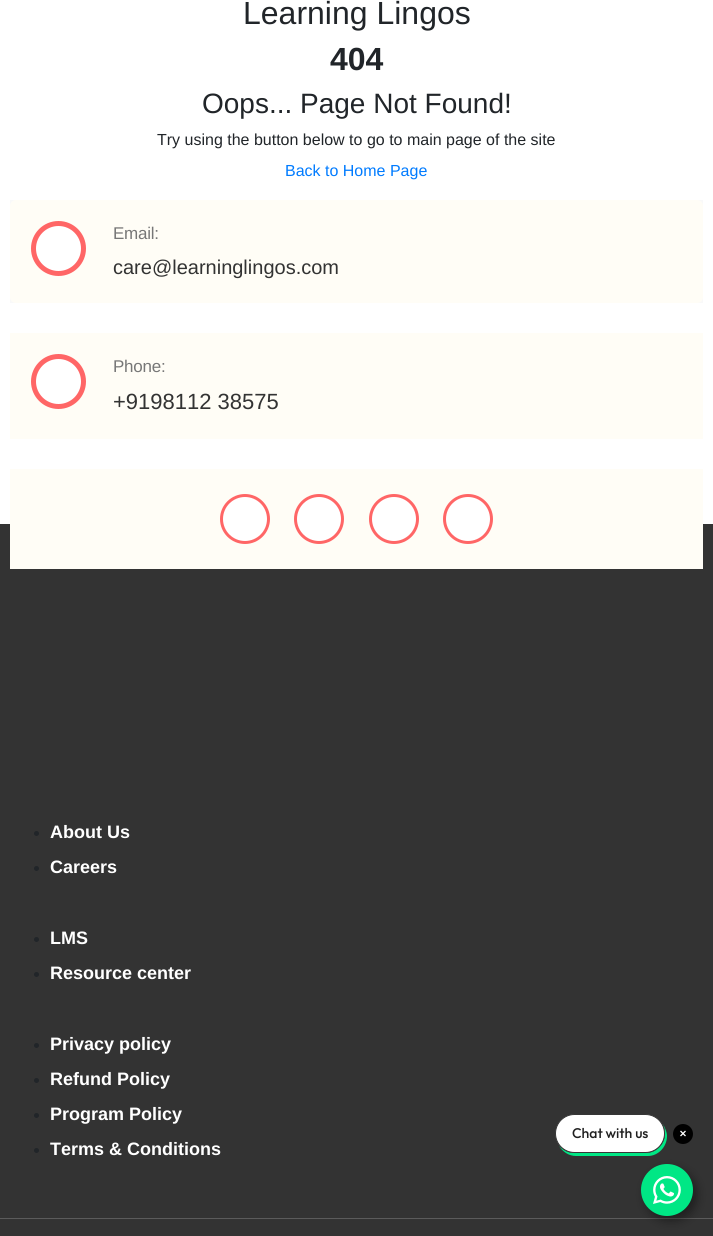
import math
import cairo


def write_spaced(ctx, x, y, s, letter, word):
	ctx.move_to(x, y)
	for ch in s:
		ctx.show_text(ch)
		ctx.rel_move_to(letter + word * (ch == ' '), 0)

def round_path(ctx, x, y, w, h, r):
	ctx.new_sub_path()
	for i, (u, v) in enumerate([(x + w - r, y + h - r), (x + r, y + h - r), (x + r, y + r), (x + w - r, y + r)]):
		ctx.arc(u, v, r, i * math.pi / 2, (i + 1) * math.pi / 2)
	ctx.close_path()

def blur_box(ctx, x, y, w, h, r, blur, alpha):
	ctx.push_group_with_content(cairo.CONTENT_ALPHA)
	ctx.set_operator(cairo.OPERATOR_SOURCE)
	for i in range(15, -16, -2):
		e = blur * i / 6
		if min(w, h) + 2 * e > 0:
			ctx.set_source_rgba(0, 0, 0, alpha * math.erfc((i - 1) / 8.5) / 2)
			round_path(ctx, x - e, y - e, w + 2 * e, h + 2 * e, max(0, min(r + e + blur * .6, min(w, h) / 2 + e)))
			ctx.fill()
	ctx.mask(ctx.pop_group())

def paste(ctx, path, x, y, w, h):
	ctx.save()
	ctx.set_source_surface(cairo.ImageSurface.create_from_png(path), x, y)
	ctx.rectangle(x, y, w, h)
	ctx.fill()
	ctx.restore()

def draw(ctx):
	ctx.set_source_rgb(1, 1, 1)
	ctx.paint()
	ctx.select_font_face('Liberation Sans')
	ctx.set_font_size(32)
	ctx.set_source_rgb(0.129, 0.145, 0.161)
	ctx.move_to(243, 24)
	ctx.show_text('Learning Lingos')
	ctx.select_font_face('Liberation Sans', cairo.FONT_SLANT_NORMAL, cairo.FONT_WEIGHT_BOLD)
	ctx.move_to(330, 70)
	ctx.show_text('404')
	ctx.select_font_face('Liberation Sans')
	ctx.set_font_size(28)
	ctx.move_to(202, 113)
	ctx.show_text('Oops... Page Not Found!')
	ctx.set_font_size(16)
	ctx.move_to(157, 145)
	ctx.show_text('Try using the button below to go to main page of the site')
	ctx.set_source_rgb(0, 0.482, 1)
	ctx.move_to(285, 176)
	ctx.show_text('Back to Home Page')
	ctx.set_source_rgb(0.976, 0.976, 0.976)
	ctx.rectangle(10, 200, 693, 103)
	ctx.fill()
	ctx.set_source_rgb(1, 0.992, 0.961)
	round_path(ctx, 10, 200, 693, 103, 6)
	ctx.fill()
	ctx.set_source_rgb(1, 1, 1)
	ctx.arc(58.5, 248.5, 25, 0, 2 * math.pi)
	ctx.fill_preserve()
	ctx.set_source_rgb(1, 0.4, 0.4)
	ctx.set_line_width(5)
	ctx.stroke()
	ctx.set_font_size(17)
	ctx.set_source_rgb(0.467, 0.467, 0.467)
	write_spaced(ctx, 113, 239, 'Email:', -0.25, 0)
	ctx.set_font_size(20)
	ctx.set_source_rgb(0.2, 0.2, 0.2)
	ctx.move_to(113, 274)
	ctx.show_text('care@learninglingos.com')
	ctx.set_source_rgb(1, 0.992, 0.961)
	ctx.rectangle(10, 333, 693, 106)
	ctx.fill()
	ctx.set_source_rgb(1, 1, 1)
	ctx.arc(58.5, 381.5, 25, 0, 2 * math.pi)
	ctx.fill_preserve()
	ctx.set_source_rgb(1, 0.4, 0.4)
	ctx.stroke()
	ctx.set_font_size(17)
	ctx.set_source_rgb(0.467, 0.467, 0.467)
	write_spaced(ctx, 113, 372, 'Phone:', -0.25, 0)
	ctx.set_font_size(22)
	ctx.set_source_rgb(0.2, 0.2, 0.2)
	ctx.move_to(113, 409)
	ctx.show_text('+9198112 38575')
	ctx.rectangle(0, 524, 713, 712)
	ctx.fill()
	ctx.set_source_rgb(1, 0.992, 0.961)
	ctx.rectangle(10, 469, 693, 100)
	ctx.fill()
	ctx.set_source_rgb(1, 1, 1)
	ctx.arc(245, 519, 23.5, 0, 2 * math.pi)
	ctx.fill_preserve()
	ctx.set_source_rgb(1, 0.4, 0.4)
	ctx.set_line_width(3)
	ctx.stroke()
	ctx.set_source_rgb(1, 1, 1)
	ctx.arc(319, 519, 23.5, 0, 2 * math.pi)
	ctx.fill_preserve()
	ctx.set_source_rgb(1, 0.4, 0.4)
	ctx.stroke()
	ctx.set_source_rgb(1, 1, 1)
	ctx.arc(394, 519, 23.5, 0, 2 * math.pi)
	ctx.fill_preserve()
	ctx.set_source_rgb(1, 0.4, 0.4)
	ctx.stroke()
	ctx.set_source_rgb(1, 1, 1)
	ctx.arc(468, 519, 23.5, 0, 2 * math.pi)
	ctx.fill_preserve()
	ctx.set_source_rgb(1, 0.4, 0.4)
	ctx.stroke()
	ctx.set_source_rgb(0.129, 0.145, 0.161)
	ctx.arc(36.5, 833.5, 2.5, 0, 2 * math.pi)
	ctx.fill()
	ctx.select_font_face('Liberation Sans', cairo.FONT_SLANT_NORMAL, cairo.FONT_WEIGHT_BOLD)
	ctx.set_font_size(18)
	ctx.set_source_rgb(1, 1, 1)
	ctx.move_to(50, 838)
	ctx.show_text('About Us')
	ctx.set_source_rgb(0.129, 0.145, 0.161)
	ctx.new_path()
	ctx.arc(36.5, 868.5, 2.5, 0, 2 * math.pi)
	ctx.fill()
	ctx.set_source_rgb(1, 1, 1)
	ctx.move_to(50, 873)
	ctx.show_text('Careers')
	ctx.set_source_rgb(0.129, 0.145, 0.161)
	ctx.new_path()
	ctx.arc(36.5, 939.5, 2.5, 0, 2 * math.pi)
	ctx.fill()
	ctx.set_source_rgb(1, 1, 1)
	ctx.move_to(50, 944)
	ctx.show_text('LMS')
	ctx.set_source_rgb(0.129, 0.145, 0.161)
	ctx.new_path()
	ctx.arc(36.5, 974.5, 2.5, 0, 2 * math.pi)
	ctx.fill()
	ctx.set_source_rgb(1, 1, 1)
	ctx.move_to(50, 979)
	ctx.show_text('Resource center')
	ctx.set_source_rgb(0.129, 0.145, 0.161)
	ctx.new_path()
	ctx.arc(36.5, 1045.5, 2.5, 0, 2 * math.pi)
	ctx.fill()
	ctx.set_source_rgb(1, 1, 1)
	ctx.move_to(50, 1050)
	ctx.show_text('Privacy policy')
	ctx.set_source_rgb(0.129, 0.145, 0.161)
	ctx.new_path()
	ctx.arc(36.5, 1080.5, 2.5, 0, 2 * math.pi)
	ctx.fill()
	ctx.set_source_rgb(1, 1, 1)
	ctx.move_to(50, 1085)
	ctx.show_text('Refund Policy')
	ctx.set_source_rgb(0.129, 0.145, 0.161)
	ctx.new_path()
	ctx.arc(36.5, 1115.5, 2.5, 0, 2 * math.pi)
	ctx.fill()
	ctx.set_source_rgb(1, 1, 1)
	ctx.move_to(50, 1120)
	ctx.show_text('Program Policy')
	ctx.set_source_rgb(0.129, 0.145, 0.161)
	ctx.new_path()
	ctx.arc(36.5, 1150.5, 2.5, 0, 2 * math.pi)
	ctx.fill()
	ctx.set_source_rgb(1, 1, 1)
	ctx.move_to(50, 1155)
	ctx.show_text('Terms & Conditions')
	ctx.set_source_rgb(0.357, 0.357, 0.357)
	ctx.rectangle(0, 1218, 713, 1)
	ctx.fill()
	ctx.set_source_rgb(0, 0, 0)
	blur_box(ctx, 645, 1169, 52, 52, 26, 5, 0.4)
	ctx.set_source_rgb(0, 0.906, 0.522)
	ctx.new_path()
	ctx.move_to(559, 1146)
	ctx.curve_to(563, 1152, 569, 1156, 576, 1156)
	ctx.line_to(648, 1156)
	ctx.curve_to(658, 1156, 667, 1147, 667, 1136)
	ctx.curve_to(667, 1132, 665, 1128, 663, 1124)
	ctx.curve_to(664, 1127, 665, 1130, 665, 1134)
	ctx.curve_to(665, 1144, 656, 1153, 646, 1153)
	ctx.line_to(574, 1153)
	ctx.curve_to(568, 1153, 563, 1150, 559, 1146)
	ctx.close_path()
	ctx.fill()
	ctx.set_source_rgb(1, 1, 1)
	round_path(ctx, 555.5, 1114.5, 109, 38, 19)
	ctx.fill_preserve()
	ctx.set_source_rgb(0.212, 0.212, 0.212)
	ctx.set_line_width(1)
	ctx.stroke()
	ctx.select_font_face('Outfit Medium')
	ctx.set_font_size(14)
	ctx.set_source_rgb(0.125, 0.125, 0.125)
	ctx.move_to(572, 1138)
	ctx.show_text('Chat with us')
	ctx.set_source_rgb(0, 0, 0)
	ctx.new_path()
	ctx.arc(683, 1134, 10, 0, 2 * math.pi)
	ctx.fill()
	ctx.new_path()
	ctx.move_to(680.5, 1131)
	ctx.line_to(685.5, 1136)
	ctx.move_to(680.5, 1136)
	ctx.line_to(685.5, 1131)
	ctx.set_source_rgb(1, 1, 1)
	ctx.set_line_width(1.3)
	ctx.stroke()
	ctx.set_source_rgb(0, 0.906, 0.522)
	ctx.arc(667, 1190, 26, 0, 2 * math.pi)
	ctx.fill()
	paste(ctx, 'media/1.png', 653, 1176, 28, 28)


surface = cairo.ImageSurface(cairo.FORMAT_RGB24, 713, 1236)
ctx = cairo.Context(surface)
options = cairo.FontOptions()
options.set_hint_metrics(cairo.HINT_METRICS_OFF)
options.set_hint_style(cairo.HINT_STYLE_NONE)
ctx.set_font_options(options)
ctx.set_miter_limit(4)
draw(ctx)
surface.write_to_png('image.png')
